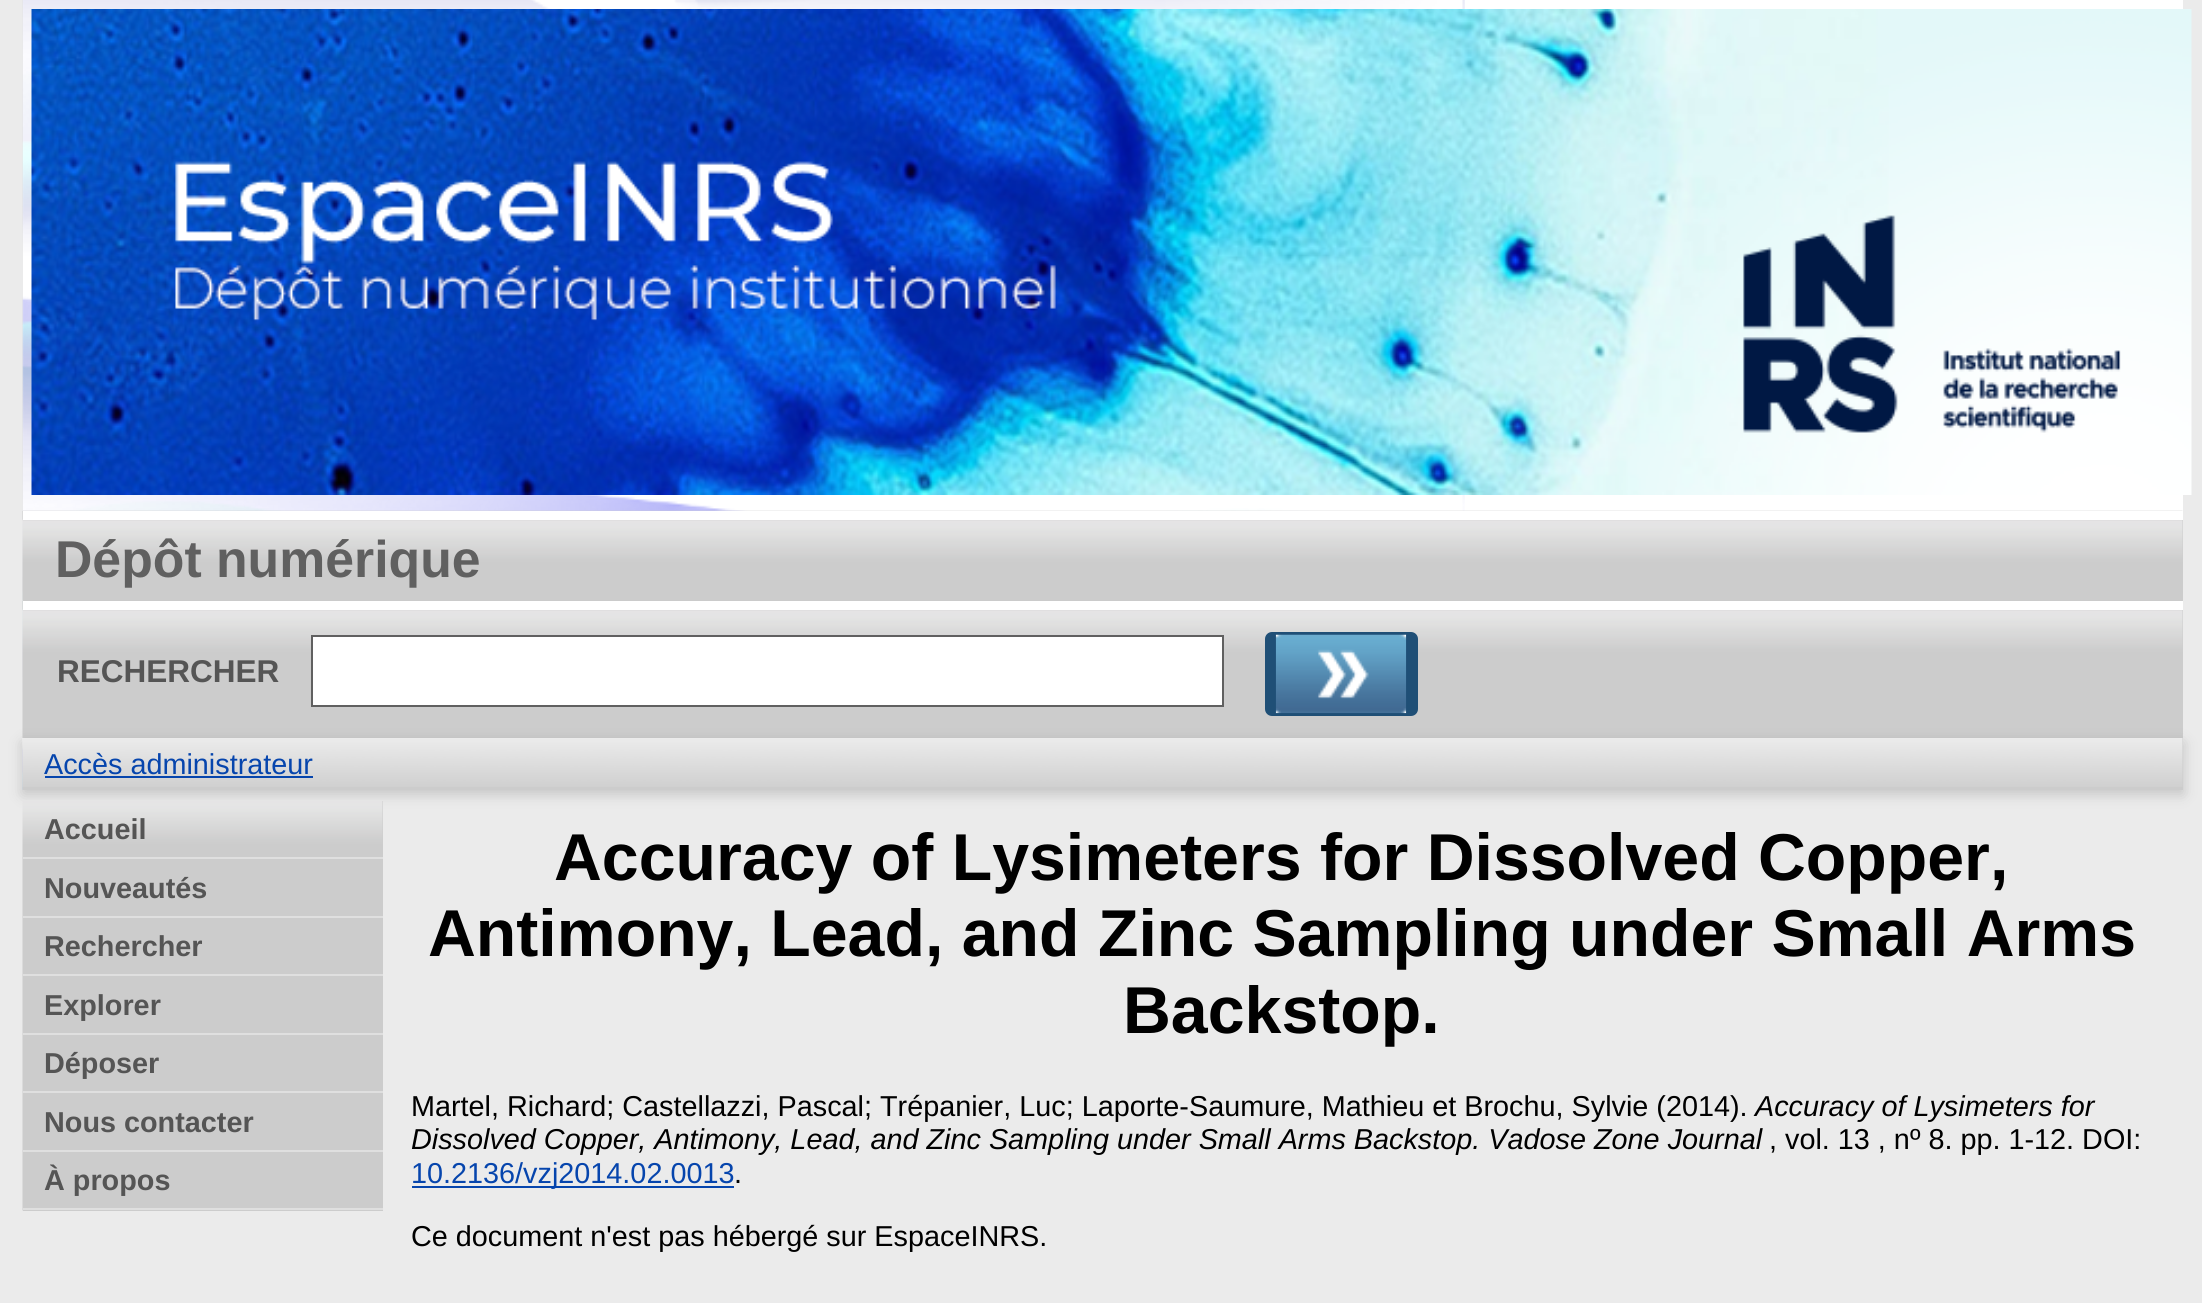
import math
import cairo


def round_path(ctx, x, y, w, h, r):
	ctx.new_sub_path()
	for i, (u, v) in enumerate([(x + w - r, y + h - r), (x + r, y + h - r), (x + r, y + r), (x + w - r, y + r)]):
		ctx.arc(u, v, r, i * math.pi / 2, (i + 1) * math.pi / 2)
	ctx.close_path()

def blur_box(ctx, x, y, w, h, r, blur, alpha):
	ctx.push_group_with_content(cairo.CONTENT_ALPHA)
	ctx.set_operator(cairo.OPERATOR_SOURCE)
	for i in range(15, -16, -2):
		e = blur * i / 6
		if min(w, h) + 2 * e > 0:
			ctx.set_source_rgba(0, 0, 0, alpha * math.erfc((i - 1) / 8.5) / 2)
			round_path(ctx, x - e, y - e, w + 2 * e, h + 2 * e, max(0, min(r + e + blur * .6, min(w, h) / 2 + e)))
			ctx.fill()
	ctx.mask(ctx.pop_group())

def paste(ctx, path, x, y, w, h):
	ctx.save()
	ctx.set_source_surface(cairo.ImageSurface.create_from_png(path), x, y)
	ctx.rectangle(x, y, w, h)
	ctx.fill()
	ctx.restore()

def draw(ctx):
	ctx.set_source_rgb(0.918, 0.918, 0.918)
	ctx.paint()
	ctx.set_source_rgb(1, 1, 1)
	ctx.rectangle(23, 0, 2160, 511)
	ctx.fill()
	paste(ctx, 'media/1.png', 22, 0, 1443, 790)
	paste(ctx, 'media/2.png', 31, 9, 2161, 486)
	ctx.set_source_rgb(0.8, 0.8, 0.8)
	ctx.rectangle(23, 520, 2160, 81)
	ctx.fill()
	paste(ctx, 'media/3.png', 22, 510, 2161, 91)
	ctx.set_source_rgb(1, 1, 1)
	ctx.rectangle(23, 511, 2160, 9)
	ctx.fill()
	ctx.select_font_face('Liberation Sans', cairo.FONT_SLANT_NORMAL, cairo.FONT_WEIGHT_BOLD)
	ctx.set_font_size(51.75)
	ctx.set_source_rgb(0.376, 0.376, 0.376)
	ctx.move_to(55, 577)
	ctx.show_text('Dépôt numérique')
	ctx.set_source_rgb(0.8, 0.8, 0.8)
	ctx.rectangle(2182, 610, 1, 128)
	ctx.fill()
	paste(ctx, 'media/4.png', 22, 601, 2161, 137)
	ctx.set_source_rgb(1, 1, 1)
	ctx.rectangle(23, 601, 2160, 9)
	ctx.fill()
	ctx.set_font_size(31.5)
	ctx.set_source_rgb(0.333, 0.333, 0.333)
	ctx.move_to(57, 682)
	ctx.show_text('RECHERCHER')
	ctx.set_source_rgb(1, 1, 1)
	ctx.rectangle(312, 636, 911, 70)
	ctx.fill_preserve()
	ctx.set_source_rgb(0.376, 0.376, 0.376)
	ctx.stroke()
	ctx.set_source_rgb(0.122, 0.31, 0.463)
	round_path(ctx, 1265, 632, 153, 84, 7)
	ctx.fill()
	paste(ctx, 'media/5.png', 1275, 634, 132, 80)
	ctx.set_source_rgb(0.392, 0.392, 0.392)
	blur_box(ctx, 23, 743, 2160, 51, 0, 7, 0.3)
	ctx.set_source_rgb(0.8, 0.8, 0.8)
	ctx.rectangle(23, 738, 2160, 52)
	ctx.fill()
	paste(ctx, 'media/6.png', 22, 738, 2161, 49)
	ctx.select_font_face('Liberation Sans')
	ctx.set_font_size(28.8)
	ctx.set_source_rgb(0.024, 0.271, 0.678)
	ctx.move_to(44, 774)
	ctx.show_text('Accès administrateur')
	ctx.rectangle(45, 776, 268, 2)
	ctx.fill()
	ctx.set_source_rgb(0.8, 0.8, 0.8)
	ctx.rectangle(23, 801, 360, 410)
	ctx.fill()
	paste(ctx, 'media/7.png', 22, 801, 361, 410)
	ctx.set_source_rgb(0.875, 0.875, 0.875)
	ctx.rectangle(23, 857, 360, 2)
	ctx.fill()
	ctx.select_font_face('Liberation Sans', cairo.FONT_SLANT_NORMAL, cairo.FONT_WEIGHT_BOLD)
	ctx.set_source_rgb(0.333, 0.333, 0.333)
	ctx.move_to(44, 839)
	ctx.show_text('Accueil')
	ctx.set_source_rgb(0.875, 0.875, 0.875)
	ctx.rectangle(23, 916, 360, 2)
	ctx.fill()
	ctx.set_source_rgb(0.333, 0.333, 0.333)
	ctx.move_to(44, 898)
	ctx.show_text('Nouveautés')
	ctx.set_source_rgb(0.875, 0.875, 0.875)
	ctx.rectangle(23, 974, 360, 2)
	ctx.fill()
	ctx.set_source_rgb(0.333, 0.333, 0.333)
	ctx.move_to(44, 956)
	ctx.show_text('Rechercher')
	ctx.set_source_rgb(0.875, 0.875, 0.875)
	ctx.rectangle(23, 1033, 360, 2)
	ctx.fill()
	ctx.set_source_rgb(0.333, 0.333, 0.333)
	ctx.move_to(44, 1015)
	ctx.show_text('Explorer')
	ctx.set_source_rgb(0.875, 0.875, 0.875)
	ctx.rectangle(23, 1091, 360, 2)
	ctx.fill()
	ctx.set_source_rgb(0.333, 0.333, 0.333)
	ctx.move_to(44, 1073)
	ctx.show_text('Déposer')
	ctx.set_source_rgb(0.875, 0.875, 0.875)
	ctx.rectangle(23, 1150, 360, 2)
	ctx.fill()
	ctx.set_source_rgb(0.333, 0.333, 0.333)
	ctx.move_to(44, 1132)
	ctx.show_text('Nous contacter')
	ctx.set_source_rgb(0.875, 0.875, 0.875)
	ctx.rectangle(23, 1208, 360, 2)
	ctx.fill()
	ctx.set_source_rgb(0.333, 0.333, 0.333)
	ctx.move_to(44, 1190)
	ctx.show_text('À propos')
	ctx.set_font_size(66.25)
	ctx.set_source_rgb(0, 0, 0)
	for x, y, s in [
		(554, 880, 'Accuracy of Lysimeters for Dissolved Copper,'),
		(428, 956, 'Antimony, Lead, and Zinc Sampling under Small Arms'),
		(1123, 1033, 'Backstop.'),
	]:
		ctx.move_to(x, y)
		ctx.show_text(s)
	ctx.select_font_face('Liberation Sans')
	ctx.set_font_size(28.8)
	ctx.move_to(411, 1116)
	ctx.show_text('Martel, Richard; Castellazzi, Pascal; Trépanier, Luc; Laporte-Saumure, Mathieu et Brochu, Sylvie (2014).')
	ctx.select_font_face('Liberation Sans', cairo.FONT_SLANT_ITALIC)
	ctx.move_to(1755, 1116)
	ctx.show_text('Accuracy of Lysimeters for')
	ctx.move_to(411, 1149)
	ctx.show_text('Dissolved Copper, Antimony, Lead, and Zinc Sampling under Small Arms Backstop. Vadose Zone Journal')
	ctx.select_font_face('Liberation Sans')
	ctx.move_to(1769, 1149)
	ctx.show_text(', vol. 13 , nº 8. pp. 1-12. DOI:')
	ctx.set_source_rgb(0.024, 0.271, 0.678)
	ctx.rectangle(412, 1186, 322, 2)
	ctx.fill()
	ctx.move_to(411, 1183)
	ctx.show_text('10.2136/vzj2014.02.0013')
	ctx.set_source_rgb(0, 0, 0)
	ctx.move_to(734, 1183)
	ctx.show_text('.')
	ctx.move_to(411, 1246)
	ctx.show_text('Ce document n\'est pas hébergé sur EspaceINRS.')


surface = cairo.ImageSurface(cairo.FORMAT_RGB24, 2202, 1303)
ctx = cairo.Context(surface)
options = cairo.FontOptions()
options.set_hint_metrics(cairo.HINT_METRICS_OFF)
options.set_hint_style(cairo.HINT_STYLE_NONE)
ctx.set_font_options(options)
ctx.set_miter_limit(4)
draw(ctx)
surface.write_to_png('image.png')
